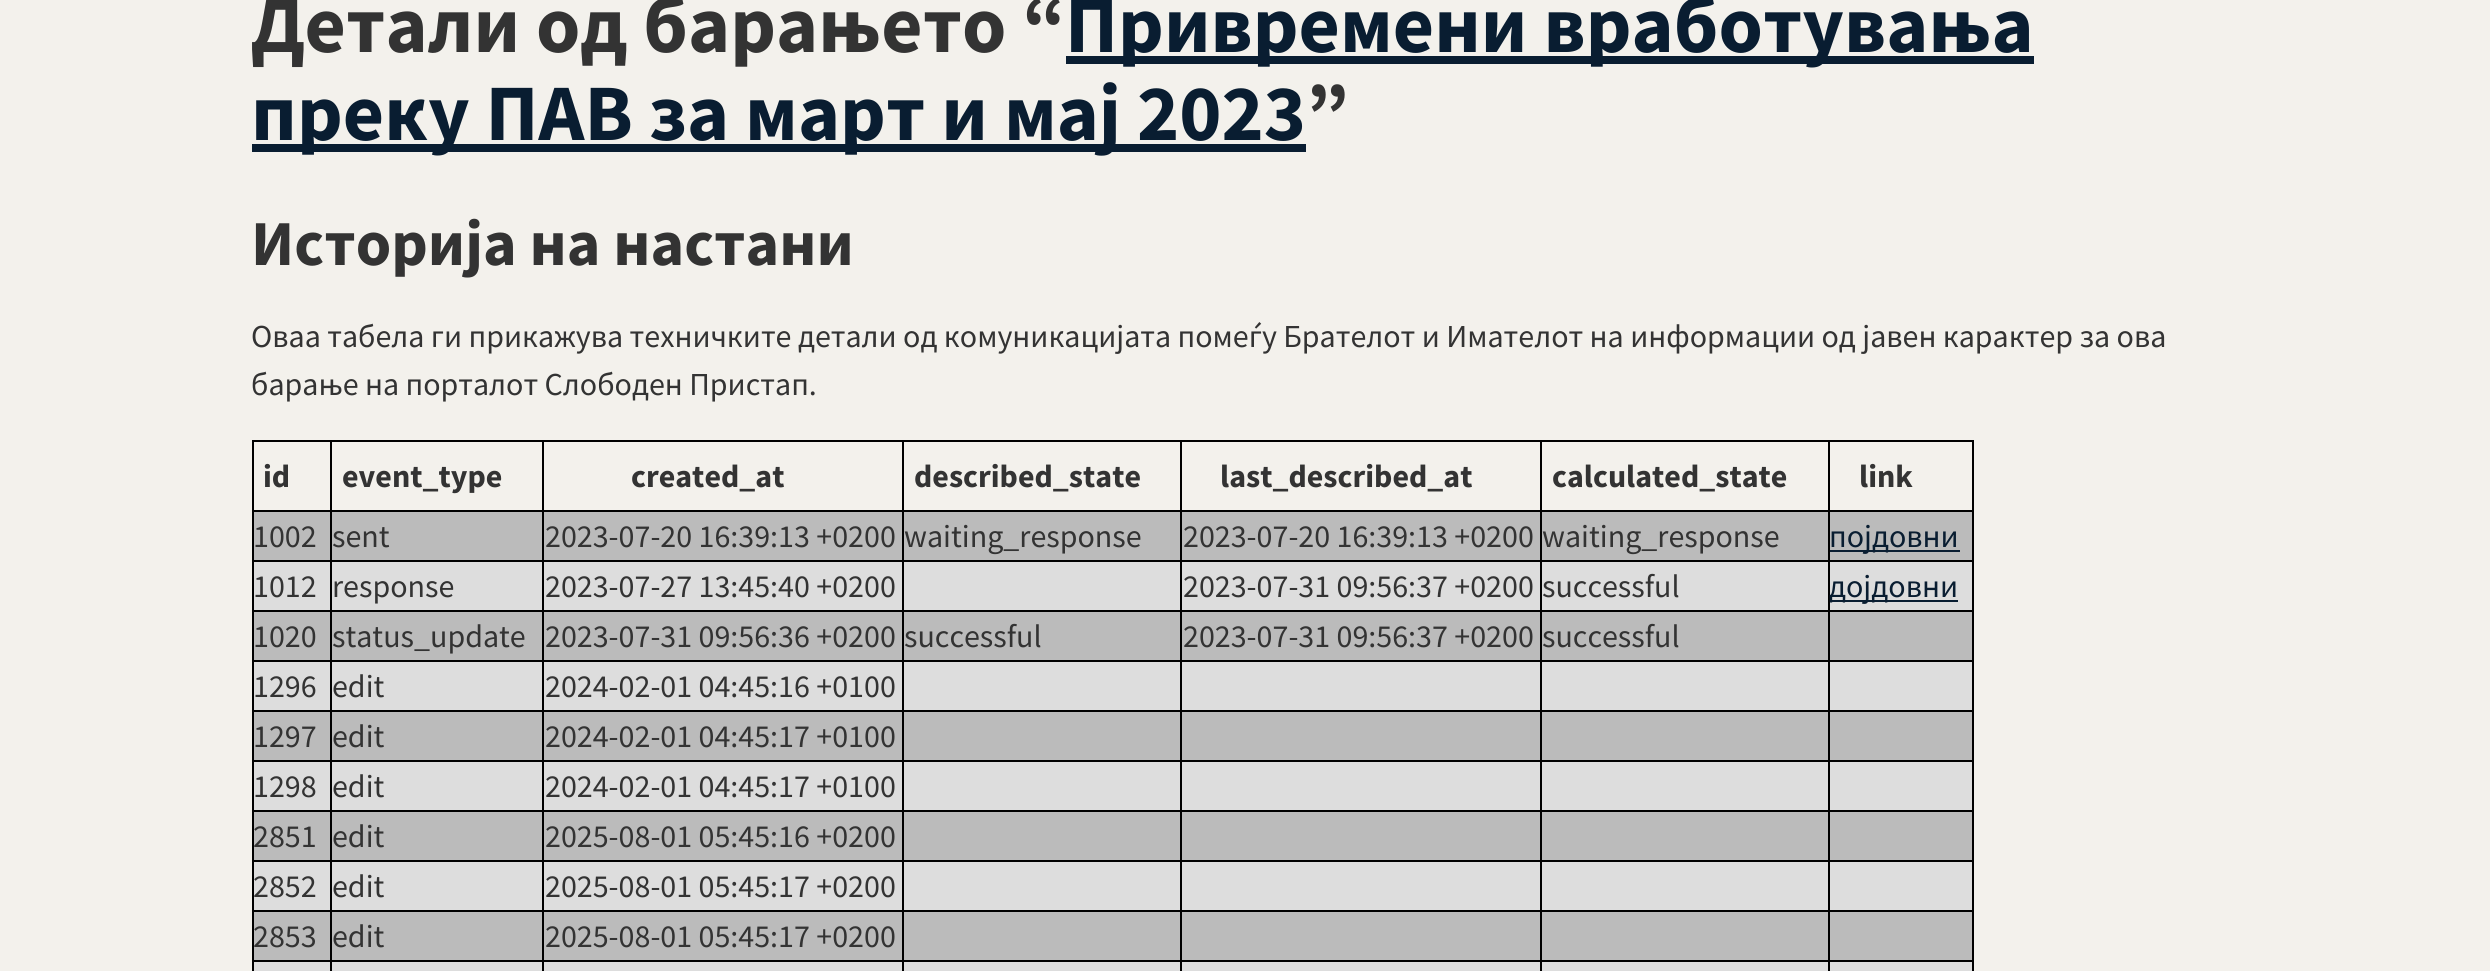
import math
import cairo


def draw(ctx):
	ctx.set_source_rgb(0.953, 0.945, 0.922)
	ctx.paint()
	ctx.select_font_face('Source Sans Pro', cairo.FONT_SLANT_NORMAL, cairo.FONT_WEIGHT_BOLD)
	ctx.set_font_size(80)
	ctx.set_source_rgb(0.2, 0.2, 0.2)
	ctx.move_to(251, 52)
	ctx.show_text('Детали од барањето “')
	ctx.set_source_rgb(0.039, 0.114, 0.192)
	ctx.rectangle(1066, 56, 968, 8)
	ctx.fill()
	ctx.move_to(1065, 52)
	ctx.show_text('Привремени вработувања')
	ctx.rectangle(252, 144, 1054, 8)
	ctx.fill()
	ctx.move_to(251, 140)
	ctx.show_text('преку ПАВ за март и мај 2023')
	ctx.set_source_rgb(0.2, 0.2, 0.2)
	ctx.move_to(1306, 140)
	ctx.show_text('”')
	ctx.set_font_size(64)
	ctx.move_to(251, 265)
	ctx.show_text('Историја на настани')
	ctx.select_font_face('Source Sans Pro')
	ctx.set_font_size(32)
	ctx.move_to(251, 347)
	ctx.show_text('Оваа табела ги прикажува техничките детали од комуникацијата помеѓу Брателот и Имателот на информации од јавен карактер за ова')
	ctx.move_to(251, 395)
	ctx.show_text('барање на порталот Слободен Пристап.')
	ctx.set_source_rgb(0, 0, 0)
	ctx.rectangle(1828, 440, 146, 2)
	ctx.rectangle(1828, 510, 146, 2)
	ctx.fill()
	ctx.set_source_rgb(0.733, 0.733, 0.733)
	ctx.rectangle(254, 512, 1718, 48)
	ctx.fill()
	ctx.set_source_rgb(0, 0, 0)
	ctx.rectangle(1828, 560, 146, 2)
	ctx.fill()
	ctx.set_source_rgb(0.867, 0.867, 0.867)
	ctx.rectangle(254, 562, 1718, 48)
	ctx.fill()
	ctx.set_source_rgb(0, 0, 0)
	ctx.rectangle(1828, 610, 146, 2)
	ctx.fill()
	ctx.set_source_rgb(0.733, 0.733, 0.733)
	ctx.rectangle(254, 612, 1718, 48)
	ctx.fill()
	ctx.set_source_rgb(0, 0, 0)
	ctx.rectangle(1828, 660, 146, 2)
	ctx.fill()
	ctx.set_source_rgb(0.867, 0.867, 0.867)
	ctx.rectangle(254, 662, 1718, 48)
	ctx.fill()
	ctx.set_source_rgb(0, 0, 0)
	ctx.rectangle(1828, 710, 146, 2)
	ctx.fill()
	ctx.set_source_rgb(0.733, 0.733, 0.733)
	ctx.rectangle(254, 712, 1718, 48)
	ctx.fill()
	ctx.set_source_rgb(0, 0, 0)
	ctx.rectangle(1828, 760, 146, 2)
	ctx.fill()
	ctx.set_source_rgb(0.867, 0.867, 0.867)
	ctx.rectangle(254, 762, 1718, 48)
	ctx.fill()
	ctx.set_source_rgb(0, 0, 0)
	ctx.rectangle(1828, 810, 146, 2)
	ctx.fill()
	ctx.set_source_rgb(0.733, 0.733, 0.733)
	ctx.rectangle(254, 812, 1718, 48)
	ctx.fill()
	ctx.set_source_rgb(0, 0, 0)
	ctx.rectangle(1828, 860, 146, 2)
	ctx.fill()
	ctx.set_source_rgb(0.867, 0.867, 0.867)
	ctx.rectangle(254, 862, 1718, 48)
	ctx.fill()
	ctx.set_source_rgb(0, 0, 0)
	ctx.rectangle(1828, 910, 146, 2)
	ctx.fill()
	ctx.set_source_rgb(0.733, 0.733, 0.733)
	ctx.rectangle(254, 912, 1718, 48)
	ctx.fill()
	ctx.set_source_rgb(0, 0, 0)
	ctx.rectangle(1828, 960, 146, 2)
	ctx.fill()
	ctx.set_source_rgb(0.867, 0.867, 0.867)
	ctx.rectangle(254, 962, 1718, 9)
	ctx.fill()
	ctx.set_source_rgb(0, 0, 0)
	ctx.rectangle(1828, 960, 2, 11)
	ctx.rectangle(1540, 960, 290, 2)
	ctx.rectangle(1828, 910, 2, 52)
	ctx.rectangle(1540, 910, 290, 2)
	ctx.rectangle(1828, 860, 2, 52)
	ctx.rectangle(1540, 860, 290, 2)
	ctx.rectangle(1828, 810, 2, 52)
	ctx.rectangle(1540, 810, 290, 2)
	ctx.rectangle(1828, 760, 2, 52)
	ctx.rectangle(1540, 760, 290, 2)
	ctx.rectangle(1828, 710, 2, 52)
	ctx.rectangle(1540, 710, 290, 2)
	ctx.rectangle(1828, 660, 2, 52)
	ctx.rectangle(1540, 660, 290, 2)
	ctx.rectangle(1828, 610, 2, 52)
	ctx.rectangle(1540, 610, 290, 2)
	ctx.rectangle(1828, 560, 2, 52)
	ctx.rectangle(1540, 560, 290, 2)
	ctx.rectangle(1828, 510, 2, 52)
	ctx.rectangle(1540, 510, 290, 2)
	ctx.rectangle(1828, 440, 2, 72)
	ctx.rectangle(1540, 440, 290, 2)
	ctx.rectangle(1540, 960, 2, 11)
	ctx.rectangle(1180, 960, 362, 2)
	ctx.rectangle(1540, 910, 2, 52)
	ctx.rectangle(1180, 910, 362, 2)
	ctx.rectangle(1540, 860, 2, 52)
	ctx.rectangle(1180, 860, 362, 2)
	ctx.rectangle(1540, 810, 2, 52)
	ctx.rectangle(1180, 810, 362, 2)
	ctx.rectangle(1540, 760, 2, 52)
	ctx.rectangle(1180, 760, 362, 2)
	ctx.rectangle(1540, 710, 2, 52)
	ctx.rectangle(1180, 710, 362, 2)
	ctx.rectangle(1540, 660, 2, 52)
	ctx.rectangle(1180, 660, 362, 2)
	ctx.rectangle(1540, 610, 2, 52)
	ctx.rectangle(1180, 610, 362, 2)
	ctx.rectangle(1540, 560, 2, 52)
	ctx.rectangle(1180, 560, 362, 2)
	ctx.rectangle(1540, 510, 2, 52)
	ctx.rectangle(1180, 510, 362, 2)
	ctx.rectangle(1540, 440, 2, 72)
	ctx.rectangle(1180, 440, 362, 2)
	ctx.rectangle(1180, 960, 2, 11)
	ctx.rectangle(902, 960, 280, 2)
	ctx.rectangle(1180, 910, 2, 52)
	ctx.rectangle(902, 910, 280, 2)
	ctx.rectangle(1180, 860, 2, 52)
	ctx.rectangle(902, 860, 280, 2)
	ctx.rectangle(1180, 810, 2, 52)
	ctx.rectangle(902, 810, 280, 2)
	ctx.rectangle(1180, 760, 2, 52)
	ctx.rectangle(902, 760, 280, 2)
	ctx.rectangle(1180, 710, 2, 52)
	ctx.rectangle(902, 710, 280, 2)
	ctx.rectangle(1180, 660, 2, 52)
	ctx.rectangle(902, 660, 280, 2)
	ctx.rectangle(1180, 610, 2, 52)
	ctx.rectangle(902, 610, 280, 2)
	ctx.rectangle(1180, 560, 2, 52)
	ctx.rectangle(902, 560, 280, 2)
	ctx.rectangle(1180, 510, 2, 52)
	ctx.rectangle(902, 510, 280, 2)
	ctx.rectangle(1180, 440, 2, 72)
	ctx.rectangle(902, 440, 280, 2)
	ctx.rectangle(902, 960, 2, 11)
	ctx.rectangle(542, 960, 362, 2)
	ctx.rectangle(902, 910, 2, 52)
	ctx.rectangle(542, 910, 362, 2)
	ctx.rectangle(902, 860, 2, 52)
	ctx.rectangle(542, 860, 362, 2)
	ctx.rectangle(902, 810, 2, 52)
	ctx.rectangle(542, 810, 362, 2)
	ctx.rectangle(902, 760, 2, 52)
	ctx.rectangle(542, 760, 362, 2)
	ctx.rectangle(902, 710, 2, 52)
	ctx.rectangle(542, 710, 362, 2)
	ctx.rectangle(902, 660, 2, 52)
	ctx.rectangle(542, 660, 362, 2)
	ctx.rectangle(902, 610, 2, 52)
	ctx.rectangle(542, 610, 362, 2)
	ctx.rectangle(902, 560, 2, 52)
	ctx.rectangle(542, 560, 362, 2)
	ctx.rectangle(902, 510, 2, 52)
	ctx.rectangle(542, 510, 362, 2)
	ctx.rectangle(902, 440, 2, 72)
	ctx.rectangle(542, 440, 362, 2)
	ctx.rectangle(542, 960, 2, 11)
	ctx.rectangle(330, 960, 214, 2)
	ctx.rectangle(542, 910, 2, 52)
	ctx.rectangle(330, 910, 214, 2)
	ctx.rectangle(542, 860, 2, 52)
	ctx.rectangle(330, 860, 214, 2)
	ctx.rectangle(542, 810, 2, 52)
	ctx.rectangle(330, 810, 214, 2)
	ctx.rectangle(542, 760, 2, 52)
	ctx.rectangle(330, 760, 214, 2)
	ctx.rectangle(542, 710, 2, 52)
	ctx.rectangle(330, 710, 214, 2)
	ctx.rectangle(542, 660, 2, 52)
	ctx.rectangle(330, 660, 214, 2)
	ctx.rectangle(542, 610, 2, 52)
	ctx.rectangle(330, 610, 214, 2)
	ctx.rectangle(542, 560, 2, 52)
	ctx.rectangle(330, 560, 214, 2)
	ctx.rectangle(542, 510, 2, 52)
	ctx.rectangle(330, 510, 214, 2)
	ctx.rectangle(542, 440, 2, 72)
	ctx.rectangle(330, 440, 214, 2)
	ctx.rectangle(330, 960, 2, 11)
	ctx.rectangle(252, 960, 80, 2)
	ctx.rectangle(330, 910, 2, 52)
	ctx.rectangle(252, 910, 80, 2)
	ctx.rectangle(330, 860, 2, 52)
	ctx.rectangle(252, 860, 80, 2)
	ctx.rectangle(330, 810, 2, 52)
	ctx.rectangle(252, 810, 80, 2)
	ctx.rectangle(330, 760, 2, 52)
	ctx.rectangle(252, 760, 80, 2)
	ctx.rectangle(330, 710, 2, 52)
	ctx.rectangle(252, 710, 80, 2)
	ctx.rectangle(330, 660, 2, 52)
	ctx.rectangle(252, 660, 80, 2)
	ctx.rectangle(330, 610, 2, 52)
	ctx.rectangle(252, 610, 80, 2)
	ctx.rectangle(330, 560, 2, 52)
	ctx.rectangle(252, 560, 80, 2)
	ctx.rectangle(330, 510, 2, 52)
	ctx.rectangle(252, 510, 80, 2)
	ctx.rectangle(330, 440, 2, 72)
	ctx.rectangle(252, 440, 80, 2)
	ctx.rectangle(252, 960, 2, 11)
	ctx.rectangle(252, 910, 2, 52)
	ctx.rectangle(252, 860, 2, 52)
	ctx.rectangle(252, 810, 2, 52)
	ctx.rectangle(252, 760, 2, 52)
	ctx.rectangle(252, 710, 2, 52)
	ctx.rectangle(252, 660, 2, 52)
	ctx.rectangle(252, 610, 2, 52)
	ctx.rectangle(252, 560, 2, 52)
	ctx.rectangle(252, 510, 2, 52)
	ctx.rectangle(252, 440, 2, 72)
	ctx.fill()
	ctx.select_font_face('Source Sans Pro', cairo.FONT_SLANT_NORMAL, cairo.FONT_WEIGHT_BOLD)
	ctx.set_source_rgb(0.2, 0.2, 0.2)
	for x, y, s in [
		(263, 487, 'id'),
		(342, 487, 'event_type'),
		(631, 487, 'created_at'),
		(914, 487, 'described_state'),
		(1220, 487, 'last_described_at'),
		(1552, 487, 'calculated_state'),
	]:
		ctx.move_to(x, y)
		ctx.show_text(s)
	ctx.set_source_rgb(0, 0, 0)
	ctx.rectangle(1972, 960, 2, 11)
	ctx.rectangle(1972, 910, 2, 52)
	ctx.rectangle(1972, 860, 2, 52)
	ctx.rectangle(1972, 810, 2, 52)
	ctx.rectangle(1972, 760, 2, 52)
	ctx.rectangle(1972, 710, 2, 52)
	ctx.rectangle(1972, 660, 2, 52)
	ctx.rectangle(1972, 610, 2, 52)
	ctx.rectangle(1972, 560, 2, 52)
	ctx.rectangle(1972, 510, 2, 52)
	ctx.rectangle(1972, 440, 2, 72)
	ctx.fill()
	ctx.set_source_rgb(0.2, 0.2, 0.2)
	ctx.move_to(1859, 487)
	ctx.show_text('link')
	ctx.select_font_face('Source Sans Pro')
	for x, y, s in [
		(253, 547, '1002'),
		(332, 547, 'sent'),
		(545, 547, '2023-07-20 16:39:13 +0200'),
		(904, 547, 'waiting_response'),
		(1183, 547, '2023-07-20 16:39:13 +0200'),
		(1542, 547, 'waiting_response'),
	]:
		ctx.move_to(x, y)
		ctx.show_text(s)
	ctx.set_source_rgb(0.039, 0.114, 0.192)
	ctx.rectangle(1830, 550, 130, 2)
	ctx.fill()
	ctx.move_to(1829, 547)
	ctx.show_text('појдовни')
	ctx.set_source_rgb(0.2, 0.2, 0.2)
	for x, y, s in [
		(253, 597, '1012'),
		(332, 597, 'response'),
		(545, 597, '2023-07-27 13:45:40 +0200'),
		(1183, 597, '2023-07-31 09:56:37 +0200'),
		(1542, 597, 'successful'),
	]:
		ctx.move_to(x, y)
		ctx.show_text(s)
	ctx.set_source_rgb(0.039, 0.114, 0.192)
	ctx.rectangle(1830, 600, 128, 2)
	ctx.fill()
	ctx.move_to(1829, 597)
	ctx.show_text('дојдовни')
	ctx.set_source_rgb(0.2, 0.2, 0.2)
	for x, y, s in [
		(253, 647, '1020'),
		(332, 647, 'status_update'),
		(545, 647, '2023-07-31 09:56:36 +0200'),
		(904, 647, 'successful'),
		(1183, 647, '2023-07-31 09:56:37 +0200'),
		(1542, 647, 'successful'),
		(253, 697, '1296'),
		(332, 697, 'edit'),
		(545, 697, '2024-02-01 04:45:16 +0100'),
		(253, 747, '1297'),
		(332, 747, 'edit'),
		(545, 747, '2024-02-01 04:45:17 +0100'),
		(253, 797, '1298'),
		(332, 797, 'edit'),
		(545, 797, '2024-02-01 04:45:17 +0100'),
		(253, 847, '2851'),
		(332, 847, 'edit'),
		(545, 847, '2025-08-01 05:45:16 +0200'),
		(253, 897, '2852'),
		(332, 897, 'edit'),
		(545, 897, '2025-08-01 05:45:17 +0200'),
		(253, 947, '2853'),
		(332, 947, 'edit'),
		(545, 947, '2025-08-01 05:45:17 +0200'),
	]:
		ctx.move_to(x, y)
		ctx.show_text(s)


surface = cairo.ImageSurface(cairo.FORMAT_RGB24, 2490, 971)
ctx = cairo.Context(surface)
options = cairo.FontOptions()
options.set_hint_metrics(cairo.HINT_METRICS_OFF)
options.set_hint_style(cairo.HINT_STYLE_NONE)
ctx.set_font_options(options)
ctx.set_miter_limit(4)
draw(ctx)
surface.write_to_png('image.png')
